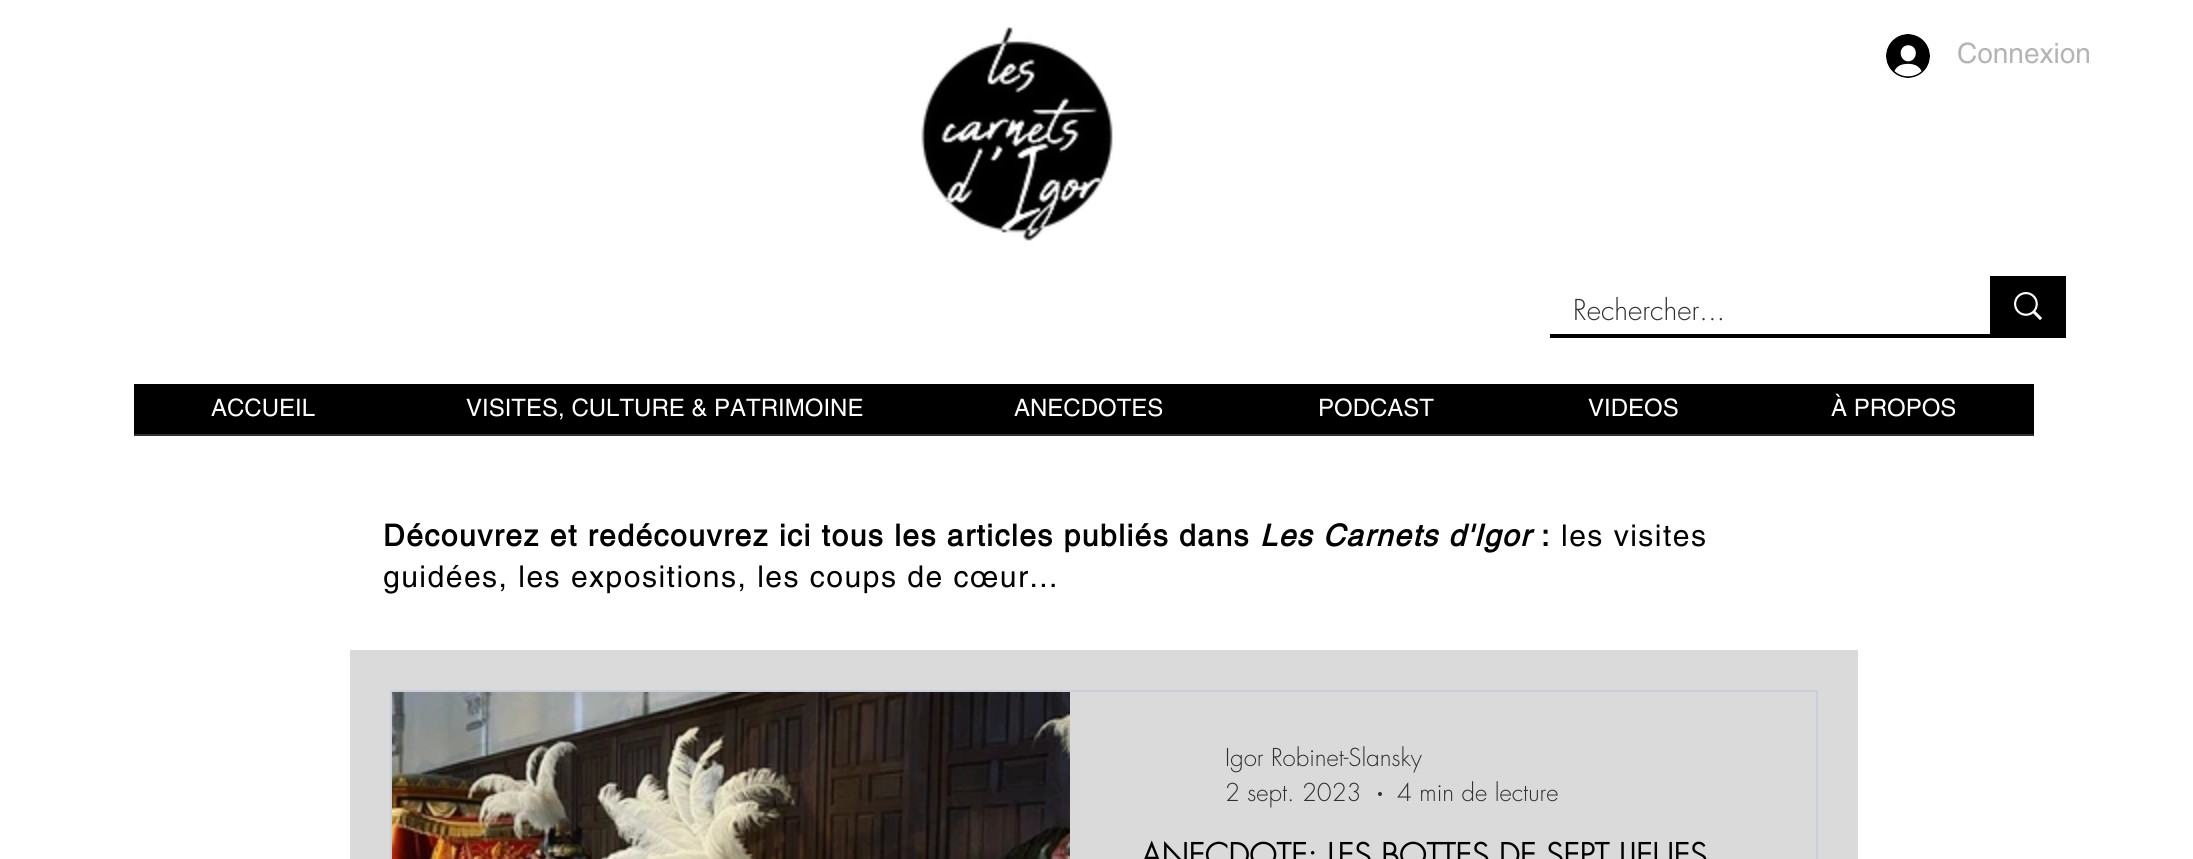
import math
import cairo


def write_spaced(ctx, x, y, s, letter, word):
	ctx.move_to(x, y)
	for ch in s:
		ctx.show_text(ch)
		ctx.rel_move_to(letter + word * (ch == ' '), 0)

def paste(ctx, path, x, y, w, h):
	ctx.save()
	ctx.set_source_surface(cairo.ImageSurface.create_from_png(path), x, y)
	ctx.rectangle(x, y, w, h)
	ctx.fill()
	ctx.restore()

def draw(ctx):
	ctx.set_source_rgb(1, 1, 1)
	ctx.paint()
	paste(ctx, 'media/1.png', 921, 26, 192, 215)
	paste(ctx, 'media/2.png', 1886, 34, 44, 44)
	ctx.select_font_face('helvetica')
	ctx.set_font_size(28)
	ctx.set_source_rgb(0.706, 0.706, 0.706)
	ctx.move_to(1957, 63)
	ctx.show_text('Connexion')
	ctx.set_source_rgb(0, 0, 0)
	ctx.rectangle(1550, 334, 516, 4)
	ctx.fill()
	ctx.select_font_face('futura Light')
	ctx.set_source_rgb(0.188, 0.188, 0.188)
	ctx.move_to(1573, 320)
	ctx.show_text('Rechercher...')
	ctx.set_source_rgb(0, 0, 0)
	ctx.rectangle(1990, 276, 76, 58)
	ctx.fill()
	paste(ctx, 'media/3.png', 2014, 292, 28, 28)
	ctx.rectangle(134, 384, 1900, 50)
	ctx.fill()
	ctx.set_source_rgb(0.188, 0.188, 0.188)
	ctx.rectangle(134, 434, 1900, 2)
	ctx.fill()
	ctx.select_font_face('helvetica')
	ctx.set_font_size(24)
	ctx.set_source_rgb(1, 1, 1)
	for x, y, s in [
		(211, 416, 'ACCUEIL'),
		(466, 416, 'VISITES, CULTURE & PATRIMOINE'),
		(1014, 416, 'ANECDOTES'),
		(1318, 416, 'PODCAST'),
		(1588, 416, 'VIDEOS'),
		(1831, 416, 'À PROPOS'),
	]:
		ctx.move_to(x, y)
		ctx.show_text(s)
	ctx.select_font_face('helvetica', cairo.FONT_SLANT_NORMAL, cairo.FONT_WEIGHT_BOLD)
	ctx.set_font_size(30)
	ctx.set_source_rgb(0, 0, 0)
	write_spaced(ctx, 383, 546, 'Découvrez et redécouvrez ici tous les articles publiés dans', 1.5, 0)
	ctx.select_font_face('helvetica', cairo.FONT_SLANT_ITALIC, cairo.FONT_WEIGHT_BOLD)
	write_spaced(ctx, 1260, 546, 'Les Carnets d\'Igor', 1.5, 0)
	ctx.select_font_face('helvetica', cairo.FONT_SLANT_NORMAL, cairo.FONT_WEIGHT_BOLD)
	write_spaced(ctx, 1541, 546, ':', 1.5, 0)
	ctx.select_font_face('helvetica')
	write_spaced(ctx, 1561, 546, 'les visites', 1.5, 0)
	write_spaced(ctx, 383, 587, 'guidées, les expositions, les coups de cœur...', 1.5, 0)
	ctx.set_source_rgb(0.855, 0.855, 0.855)
	ctx.rectangle(350, 650, 1508, 209)
	ctx.fill()
	ctx.rectangle(391, 691, 1426, 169)
	ctx.set_source_rgb(0.788, 0.812, 0.855)
	ctx.stroke()
	paste(ctx, 'media/4.png', 392, 692, 678, 167)
	ctx.select_font_face('futura Light')
	ctx.set_font_size(24)
	ctx.set_source_rgb(0.188, 0.188, 0.188)
	ctx.move_to(1225, 766)
	ctx.show_text('Igor Robinet-Slansky')
	ctx.move_to(1225, 801)
	ctx.show_text('2 sept. 2023')
	ctx.new_path()
	ctx.arc(1380, 794, 2, 0, 2 * math.pi)
	ctx.fill()
	ctx.move_to(1397, 801)
	ctx.show_text('4 min de lecture')
	ctx.select_font_face('futura', cairo.FONT_SLANT_NORMAL, cairo.FONT_WEIGHT_BOLD)
	ctx.set_font_size(32)
	ctx.set_source_rgb(0, 0, 0)
	ctx.move_to(1141, 867)
	ctx.show_text('ANECDOTE: LES BOTTES DE SEPT LIEUES')


surface = cairo.ImageSurface(cairo.FORMAT_RGB24, 2193, 859)
ctx = cairo.Context(surface)
options = cairo.FontOptions()
options.set_hint_metrics(cairo.HINT_METRICS_OFF)
options.set_hint_style(cairo.HINT_STYLE_NONE)
ctx.set_font_options(options)
ctx.set_miter_limit(4)
draw(ctx)
surface.write_to_png('image.png')
